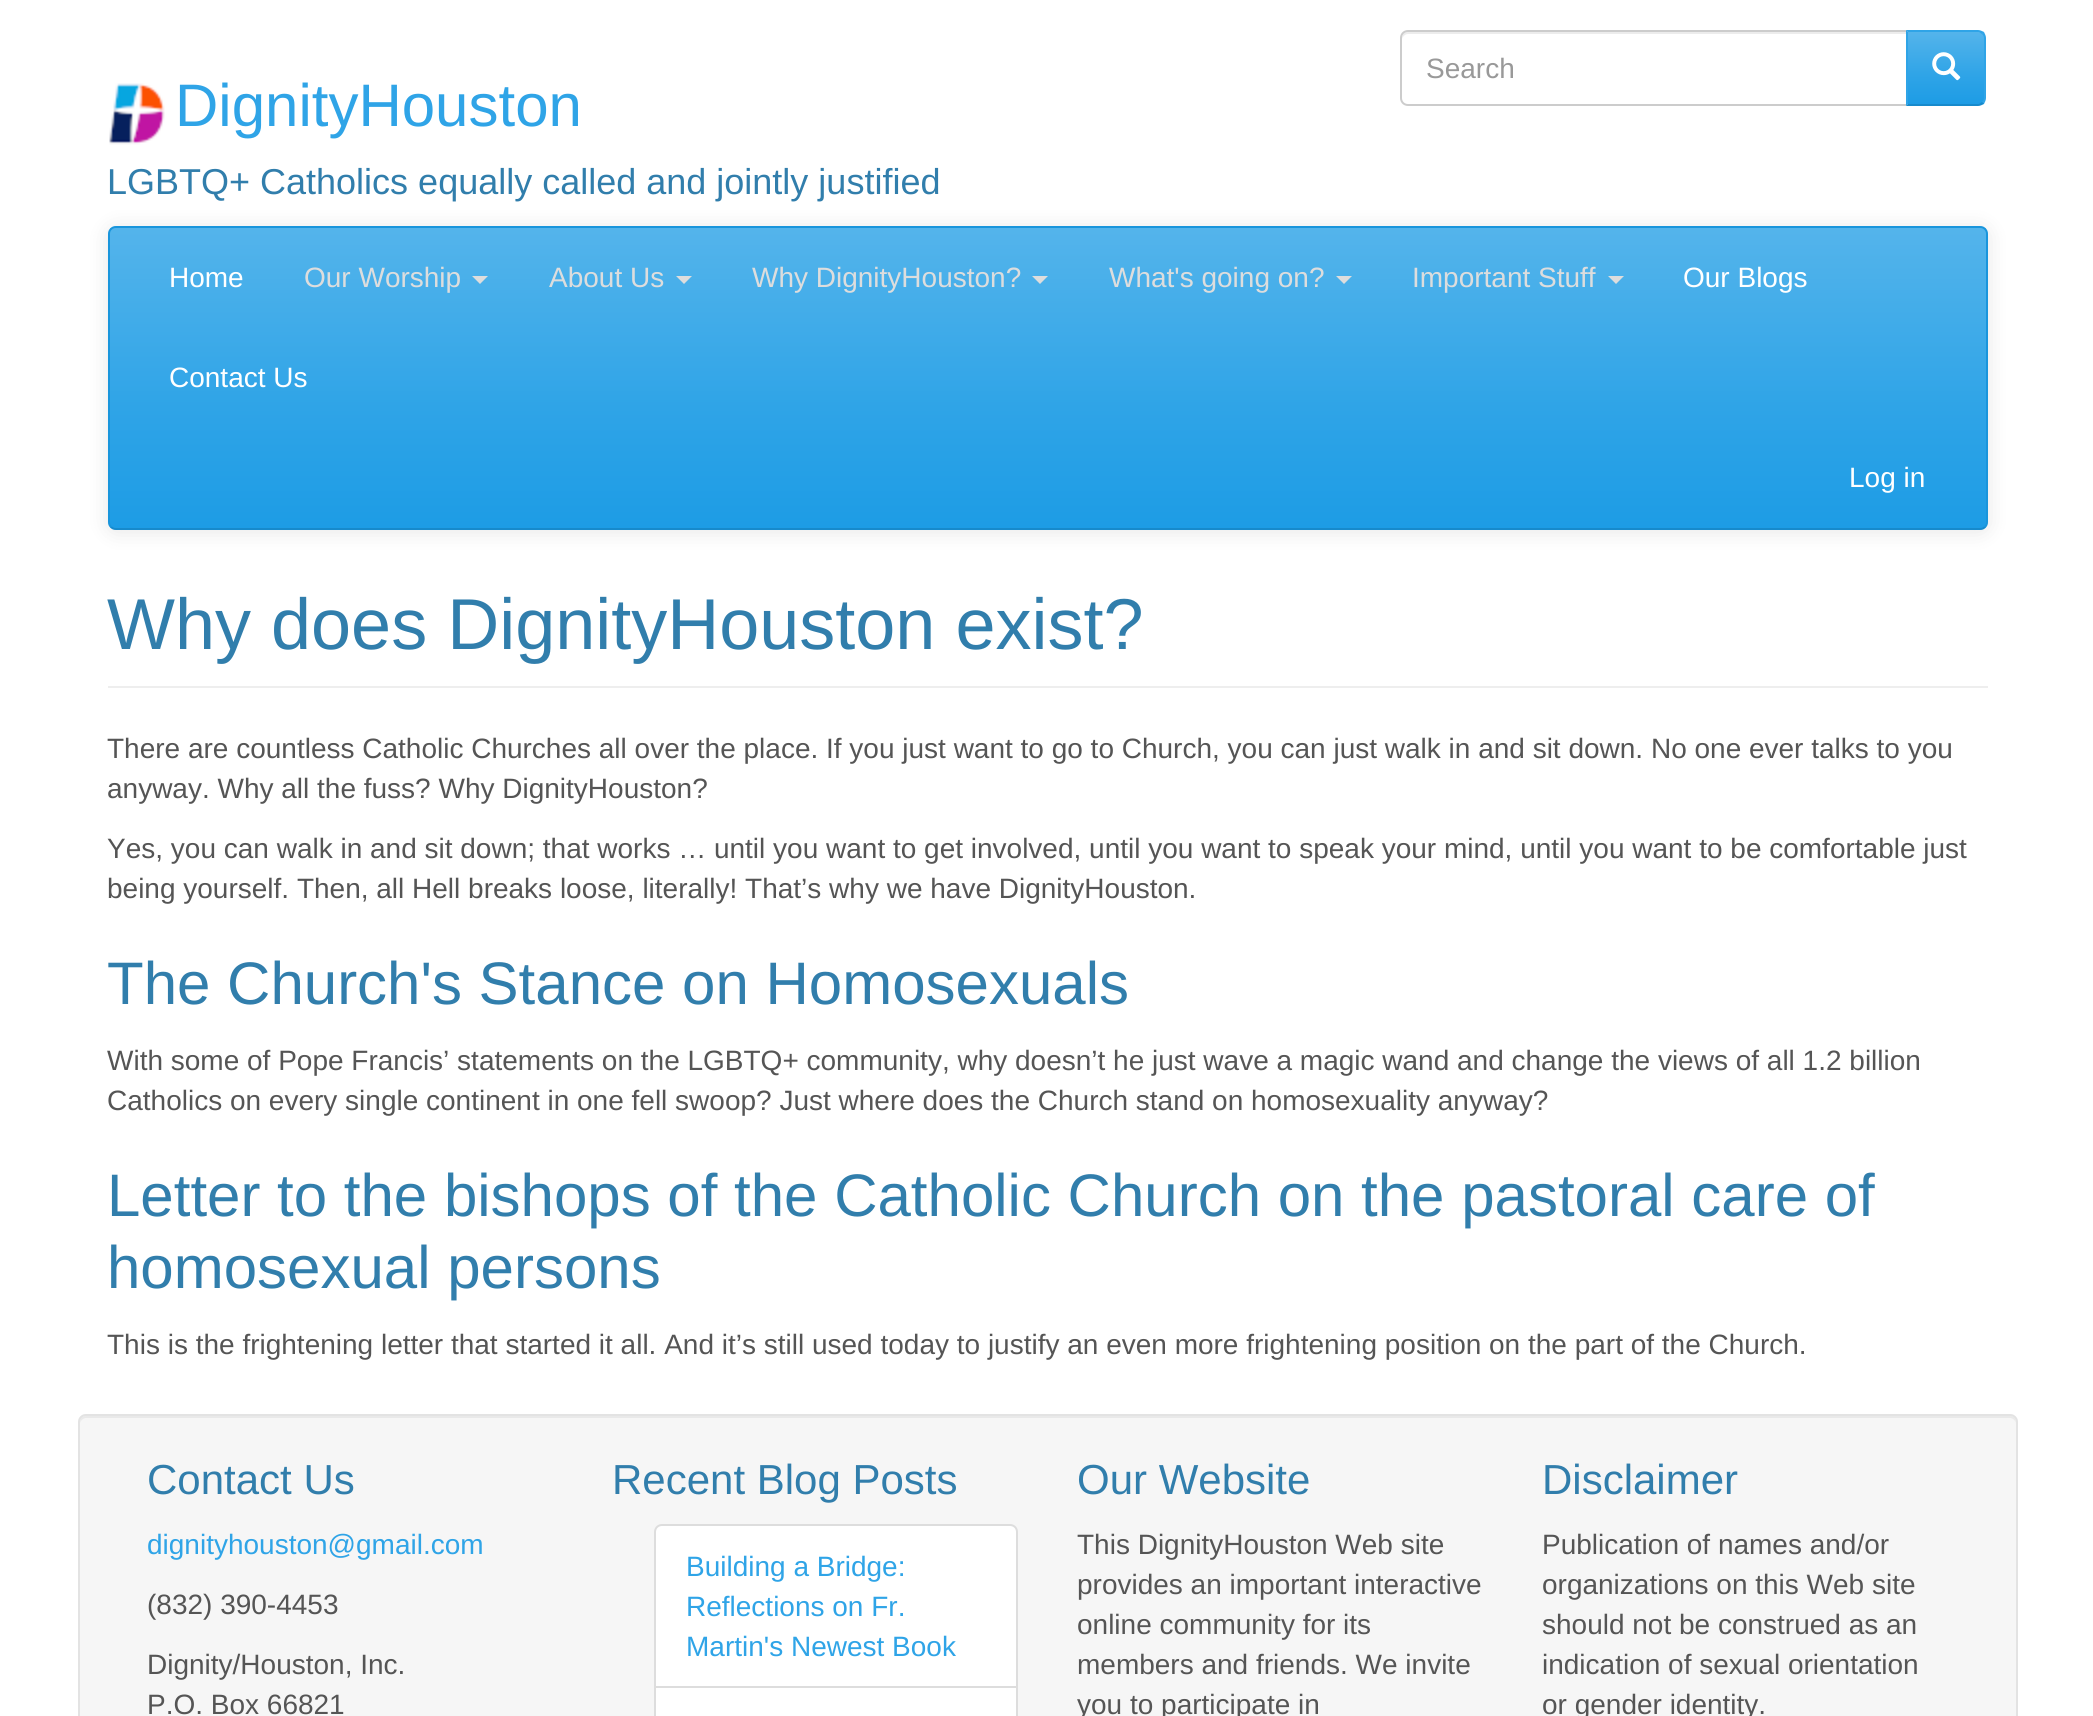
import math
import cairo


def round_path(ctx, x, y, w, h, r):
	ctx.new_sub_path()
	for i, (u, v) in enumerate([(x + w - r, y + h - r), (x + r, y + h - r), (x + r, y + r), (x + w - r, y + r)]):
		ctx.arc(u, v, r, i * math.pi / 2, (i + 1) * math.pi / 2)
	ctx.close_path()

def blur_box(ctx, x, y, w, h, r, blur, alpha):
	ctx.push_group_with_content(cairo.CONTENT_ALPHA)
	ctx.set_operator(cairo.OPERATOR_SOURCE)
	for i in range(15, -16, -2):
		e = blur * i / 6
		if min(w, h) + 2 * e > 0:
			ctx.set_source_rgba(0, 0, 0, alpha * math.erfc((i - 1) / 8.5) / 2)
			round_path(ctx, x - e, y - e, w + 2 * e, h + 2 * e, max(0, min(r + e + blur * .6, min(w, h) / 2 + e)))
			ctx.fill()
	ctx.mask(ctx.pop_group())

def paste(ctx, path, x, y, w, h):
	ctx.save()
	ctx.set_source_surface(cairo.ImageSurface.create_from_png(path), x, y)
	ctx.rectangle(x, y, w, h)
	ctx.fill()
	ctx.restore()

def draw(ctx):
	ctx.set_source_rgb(1, 1, 1)
	ctx.paint()
	ctx.set_source_rgb(0.925, 0.925, 0.925)
	ctx.new_path()
	ctx.move_to(1408, 34)
	ctx.line_to(1906, 34)
	ctx.line_to(1906, 32)
	ctx.line_to(1408, 32)
	ctx.curve_to(1403, 32, 1402, 36, 1402, 40)
	ctx.curve_to(1402, 37, 1405, 34, 1408, 34)
	ctx.close_path()
	ctx.fill()
	ctx.new_path()
	ctx.move_to(1408, 31)
	ctx.line_to(1907, 31)
	ctx.line_to(1907, 105)
	ctx.line_to(1408, 105)
	ctx.curve_to(1404, 105, 1401, 102, 1401, 98)
	ctx.line_to(1401, 38)
	ctx.curve_to(1401, 34, 1404, 31, 1408, 31)
	ctx.close_path()
	ctx.set_source_rgb(0.8, 0.8, 0.8)
	ctx.stroke()
	ctx.select_font_face('Liberation Sans')
	ctx.set_font_size(28)
	ctx.set_source_rgb(0.6, 0.6, 0.6)
	ctx.move_to(1426, 78)
	ctx.show_text('Search')
	gradient = cairo.LinearGradient(1946, 32, 1946, 104)
	gradient.add_color_stop_rgba(0, 0.329, 0.706, 0.922, 1)
	gradient.add_color_stop_rgba(0.6, 0.184, 0.643, 0.906, 1)
	gradient.add_color_stop_rgba(1, 0.114, 0.612, 0.898, 1)
	ctx.set_source(gradient)
	ctx.rectangle(1908, 32, 76, 72)
	ctx.fill()
	ctx.set_source_rgb(0.184, 0.643, 0.906)
	ctx.new_path()
	ctx.move_to(1906, 30)
	ctx.line_to(1908, 32)
	ctx.line_to(1979, 32)
	ctx.line_to(1982, 34)
	ctx.line_to(1984, 32)
	ctx.curve_to(1982, 31, 1980, 30, 1978, 30)
	ctx.close_path()
	ctx.fill()
	ctx.new_path()
	ctx.move_to(1986, 98)
	ctx.line_to(1986, 38)
	ctx.curve_to(1986, 36, 1985, 34, 1984, 32)
	ctx.line_to(1982, 34)
	ctx.curve_to(1983, 35, 1984, 36, 1984, 38)
	ctx.line_to(1984, 98)
	ctx.curve_to(1984, 100, 1983, 101, 1982, 102)
	ctx.line_to(1984, 104)
	ctx.curve_to(1985, 102, 1986, 100, 1986, 98)
	ctx.close_path()
	ctx.fill()
	ctx.set_source_rgb(0.09, 0.541, 0.8)
	ctx.new_path()
	ctx.move_to(1978, 106)
	ctx.curve_to(1980, 106, 1982, 105, 1984, 104)
	ctx.line_to(1982, 102)
	ctx.line_to(1979, 104)
	ctx.line_to(1908, 104)
	ctx.line_to(1906, 106)
	ctx.close_path()
	ctx.fill()
	ctx.set_source_rgb(0.184, 0.643, 0.906)
	ctx.new_path()
	ctx.move_to(1906, 30)
	ctx.line_to(1906, 106)
	ctx.line_to(1908, 104)
	ctx.line_to(1908, 32)
	ctx.close_path()
	ctx.fill()
	paste(ctx, 'media/1.png', 1932, 52, 29, 29)
	paste(ctx, 'media/2.png', 109, 83, 56, 62)
	ctx.set_font_size(60)
	ctx.move_to(175, 126)
	ctx.show_text('DignityHouston')
	ctx.set_font_size(36)
	ctx.set_source_rgb(0.192, 0.494, 0.675)
	ctx.move_to(107, 194)
	ctx.show_text('LGBTQ+ Catholics equally called and jointly justified')
	ctx.set_source_rgb(0, 0, 0)
	blur_box(ctx, 108, 228, 1880, 304, 8, 10, 0.1)
	ctx.save()
	round_path(ctx, 108, 226, 1880, 304, 8)
	ctx.clip()
	gradient = cairo.LinearGradient(1048, 228, 1048, 528)
	gradient.add_color_stop_rgba(0, 0.329, 0.706, 0.922, 1)
	gradient.add_color_stop_rgba(0.6, 0.184, 0.643, 0.906, 1)
	gradient.add_color_stop_rgba(1, 0.114, 0.612, 0.898, 1)
	ctx.set_source(gradient)
	ctx.rectangle(110, 228, 1876, 300)
	ctx.fill()
	ctx.restore()
	ctx.new_path()
	ctx.move_to(1985, 527)
	ctx.curve_to(1983.5, 528.5, 1982, 529, 1980, 529)
	ctx.line_to(116, 529)
	ctx.curve_to(114, 529, 112.5, 528.5, 111, 527)
	ctx.set_source_rgb(0.09, 0.541, 0.8)
	ctx.stroke()
	ctx.new_path()
	ctx.move_to(111, 527)
	ctx.curve_to(109.5, 525.5, 109, 524, 109, 522)
	ctx.line_to(109, 234)
	ctx.curve_to(109, 232, 109.5, 230.5, 111, 229)
	ctx.curve_to(112.5, 227.5, 114, 227, 116, 227)
	ctx.line_to(1980, 227)
	ctx.curve_to(1982, 227, 1983.5, 227.5, 1985, 229)
	ctx.curve_to(1986.5, 230.5, 1987, 232, 1987, 234)
	ctx.line_to(1987, 522)
	ctx.curve_to(1987, 524, 1986.5, 525.5, 1985, 527)
	ctx.set_source_rgb(0.098, 0.584, 0.863)
	ctx.stroke()
	ctx.set_font_size(28)
	ctx.set_source_rgb(1, 1, 1)
	ctx.move_to(169, 287)
	ctx.show_text('Home')
	ctx.set_source_rgb(0.867, 0.867, 0.867)
	ctx.move_to(304, 287)
	ctx.show_text('Our Worship')
	ctx.new_path()
	ctx.move_to(472, 276)
	ctx.line_to(488, 276)
	ctx.line_to(480, 284)
	ctx.close_path()
	ctx.fill()
	ctx.move_to(549, 287)
	ctx.show_text('About Us')
	ctx.new_path()
	ctx.move_to(676, 276)
	ctx.line_to(692, 276)
	ctx.line_to(684, 284)
	ctx.close_path()
	ctx.fill()
	ctx.move_to(752, 287)
	ctx.show_text('Why DignityHouston?')
	ctx.new_path()
	ctx.move_to(1032, 276)
	ctx.line_to(1048, 276)
	ctx.line_to(1040, 284)
	ctx.close_path()
	ctx.fill()
	ctx.move_to(1109, 287)
	ctx.show_text('What\'s going on?')
	ctx.new_path()
	ctx.move_to(1336, 276)
	ctx.line_to(1352, 276)
	ctx.line_to(1344, 284)
	ctx.close_path()
	ctx.fill()
	ctx.move_to(1412, 287)
	ctx.show_text('Important Stuff')
	ctx.new_path()
	ctx.move_to(1608, 276)
	ctx.line_to(1624, 276)
	ctx.line_to(1616, 284)
	ctx.close_path()
	ctx.fill()
	ctx.set_source_rgb(1, 1, 1)
	for x, y, s in [
		(1683, 287, 'Our Blogs'),
		(169, 387, 'Contact Us'),
		(1849, 487, 'Log in'),
	]:
		ctx.move_to(x, y)
		ctx.show_text(s)
	ctx.set_source_rgb(0.933, 0.933, 0.933)
	ctx.rectangle(108, 686, 1880, 2)
	ctx.fill()
	ctx.set_font_size(72)
	ctx.set_source_rgb(0.192, 0.494, 0.675)
	ctx.move_to(107, 649)
	ctx.show_text('Why does DignityHouston exist?')
	ctx.set_font_size(28)
	ctx.set_source_rgb(0.333, 0.333, 0.333)
	for x, y, s in [
		(107, 758, 'There are countless Catholic Churches all over the place. If you just want to go to Church, you can just walk in and sit down. No one ever talks to you'),
		(107, 798, 'anyway. Why all the fuss? Why DignityHouston?'),
		(107, 858, 'Yes, you can walk in and sit down; that works … until you want to get involved, until you want to speak your mind, until you want to be comfortable just'),
		(107, 898, 'being yourself. Then, all Hell breaks loose, literally! That’s why we have DignityHouston.'),
	]:
		ctx.move_to(x, y)
		ctx.show_text(s)
	ctx.set_font_size(60)
	ctx.set_source_rgb(0.192, 0.494, 0.675)
	ctx.move_to(107, 1004)
	ctx.show_text('The Church\'s Stance on Homosexuals')
	ctx.set_font_size(28)
	ctx.set_source_rgb(0.333, 0.333, 0.333)
	ctx.move_to(107, 1070)
	ctx.show_text('With some of Pope Francis’ statements on the LGBTQ+ community, why doesn’t he just wave a magic wand and change the views of all 1.2 billion')
	ctx.move_to(107, 1110)
	ctx.show_text('Catholics on every single continent in one fell swoop? Just where does the Church stand on homosexuality anyway?')
	ctx.set_font_size(60)
	ctx.set_source_rgb(0.192, 0.494, 0.675)
	ctx.move_to(107, 1216)
	ctx.show_text('Letter to the bishops of the Catholic Church on the pastoral care of')
	ctx.move_to(107, 1288)
	ctx.show_text('homosexual persons')
	ctx.set_font_size(28)
	ctx.set_source_rgb(0.333, 0.333, 0.333)
	ctx.move_to(107, 1354)
	ctx.show_text('This is the frightening letter that started it all. And it’s still used today to justify an even more frightening position on the part of the Church.')
	ctx.set_source_rgb(0.961, 0.961, 0.961)
	round_path(ctx, 78, 1414, 1940, 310, 8)
	ctx.fill()
	ctx.set_source_rgb(0.914, 0.914, 0.914)
	ctx.new_path()
	ctx.move_to(86, 1418)
	ctx.line_to(2010, 1418)
	ctx.curve_to(2013, 1418, 2016, 1421, 2016, 1424)
	ctx.curve_to(2016, 1420, 2015, 1416, 2010, 1416)
	ctx.line_to(86, 1416)
	ctx.curve_to(81, 1416, 80, 1420, 80, 1424)
	ctx.curve_to(80, 1421, 83, 1418, 86, 1418)
	ctx.close_path()
	ctx.fill()
	round_path(ctx, 79, 1415, 1938, 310, 7)
	ctx.set_source_rgb(0.89, 0.89, 0.89)
	ctx.stroke()
	ctx.set_font_size(42)
	ctx.set_source_rgb(0.192, 0.494, 0.675)
	ctx.move_to(147, 1494)
	ctx.show_text('Contact Us')
	ctx.set_font_size(28)
	ctx.set_source_rgb(0.184, 0.643, 0.906)
	ctx.move_to(147, 1554)
	ctx.show_text('dignityhouston@gmail.com')
	ctx.set_source_rgb(0.333, 0.333, 0.333)
	for x, y, s in [
		(147, 1614, '(832) 390-4453'),
		(147, 1674, 'Dignity/Houston, Inc.'),
		(147, 1714, 'P.O. Box 66821'),
	]:
		ctx.move_to(x, y)
		ctx.show_text(s)
	ctx.set_font_size(42)
	ctx.set_source_rgb(0.192, 0.494, 0.675)
	ctx.move_to(612, 1494)
	ctx.show_text('Recent Blog Posts')
	ctx.set_source_rgb(1, 1, 1)
	ctx.new_path()
	ctx.move_to(662, 1525)
	ctx.line_to(1010, 1525)
	ctx.curve_to(1014, 1525, 1017, 1528, 1017, 1532)
	ctx.line_to(1017, 1687)
	ctx.line_to(655, 1687)
	ctx.line_to(655, 1532)
	ctx.curve_to(655, 1528, 658, 1525, 662, 1525)
	ctx.close_path()
	ctx.fill_preserve()
	ctx.set_source_rgb(0.867, 0.867, 0.867)
	ctx.stroke()
	ctx.set_font_size(28)
	ctx.set_source_rgb(0.184, 0.643, 0.906)
	for x, y, s in [
		(686, 1576, 'Building a Bridge:'),
		(686, 1616, 'Reflections on Fr.'),
		(686, 1656, 'Martin\'s Newest Book'),
	]:
		ctx.move_to(x, y)
		ctx.show_text(s)
	ctx.set_source_rgb(1, 1, 1)
	ctx.rectangle(655, 1687, 362, 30)
	ctx.fill_preserve()
	ctx.set_source_rgb(0.867, 0.867, 0.867)
	ctx.stroke()
	ctx.set_font_size(42)
	ctx.set_source_rgb(0.192, 0.494, 0.675)
	ctx.move_to(1077, 1494)
	ctx.show_text('Our Website')
	ctx.set_font_size(28)
	ctx.set_source_rgb(0.333, 0.333, 0.333)
	for x, y, s in [
		(1077, 1554, 'This DignityHouston Web site'),
		(1077, 1594, 'provides an important interactive'),
		(1077, 1634, 'online community for its'),
		(1077, 1674, 'members and friends. We invite'),
		(1077, 1714, 'you to participate in'),
	]:
		ctx.move_to(x, y)
		ctx.show_text(s)
	ctx.set_font_size(42)
	ctx.set_source_rgb(0.192, 0.494, 0.675)
	ctx.move_to(1542, 1494)
	ctx.show_text('Disclaimer')
	ctx.set_font_size(28)
	ctx.set_source_rgb(0.333, 0.333, 0.333)
	for x, y, s in [
		(1542, 1554, 'Publication of names and/or'),
		(1542, 1594, 'organizations on this Web site'),
		(1542, 1634, 'should not be construed as an'),
		(1542, 1674, 'indication of sexual orientation'),
		(1542, 1714, 'or gender identity.'),
	]:
		ctx.move_to(x, y)
		ctx.show_text(s)


surface = cairo.ImageSurface(cairo.FORMAT_RGB24, 2093, 1716)
ctx = cairo.Context(surface)
options = cairo.FontOptions()
options.set_hint_metrics(cairo.HINT_METRICS_OFF)
options.set_hint_style(cairo.HINT_STYLE_NONE)
ctx.set_font_options(options)
ctx.set_miter_limit(4)
draw(ctx)
surface.write_to_png('image.png')
